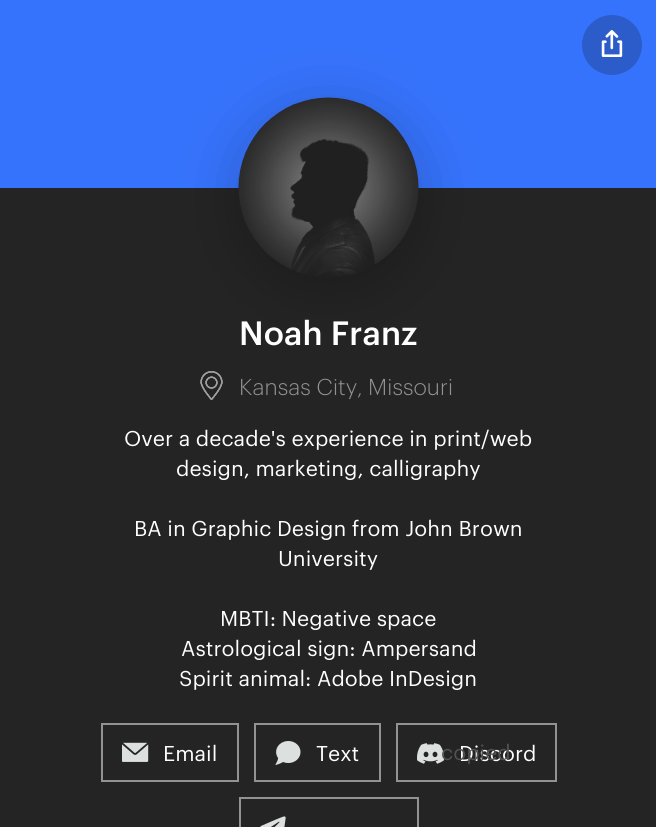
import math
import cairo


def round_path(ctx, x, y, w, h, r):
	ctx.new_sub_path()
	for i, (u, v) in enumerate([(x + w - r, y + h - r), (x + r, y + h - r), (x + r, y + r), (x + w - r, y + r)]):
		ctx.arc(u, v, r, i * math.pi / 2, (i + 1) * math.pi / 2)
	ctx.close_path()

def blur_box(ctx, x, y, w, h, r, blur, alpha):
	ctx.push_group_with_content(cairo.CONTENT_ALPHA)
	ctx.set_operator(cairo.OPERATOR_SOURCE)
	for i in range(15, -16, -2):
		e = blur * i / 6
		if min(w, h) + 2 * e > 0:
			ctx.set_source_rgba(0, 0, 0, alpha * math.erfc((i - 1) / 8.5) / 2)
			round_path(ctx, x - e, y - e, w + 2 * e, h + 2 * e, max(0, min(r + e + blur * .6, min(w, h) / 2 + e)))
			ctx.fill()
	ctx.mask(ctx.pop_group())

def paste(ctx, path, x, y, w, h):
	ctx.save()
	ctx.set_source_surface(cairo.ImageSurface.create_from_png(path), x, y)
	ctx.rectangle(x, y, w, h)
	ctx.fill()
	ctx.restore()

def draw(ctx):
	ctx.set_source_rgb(0.141, 0.141, 0.141)
	ctx.paint()
	ctx.set_source_rgb(0.212, 0.451, 0.988)
	ctx.rectangle(0, 0, 656, 188)
	ctx.fill()
	ctx.set_source_rgb(0.169, 0.361, 0.792)
	ctx.arc(612, 45, 30, 0, 2 * math.pi)
	ctx.fill()
	paste(ctx, 'media/1.png', 601, 30, 22, 27)
	ctx.set_source_rgb(0, 0, 0)
	blur_box(ctx, 239, 110, 180, 180, 90, 30, 0.21)
	paste(ctx, 'media/2.png', 238, 97, 181, 180)
	ctx.select_font_face('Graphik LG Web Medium')
	ctx.set_font_size(33)
	ctx.set_source_rgb(1, 1, 1)
	ctx.move_to(239, 345)
	ctx.show_text('Noah Franz')
	paste(ctx, 'media/3.png', 200, 371, 23, 30)
	ctx.select_font_face('Graphik LG Web Light')
	ctx.set_font_size(22.5)
	ctx.set_source_rgb(0.573, 0.573, 0.573)
	ctx.move_to(239, 395)
	ctx.show_text('Kansas City, Missouri')
	ctx.select_font_face('Graphik LG Web')
	ctx.set_font_size(21)
	ctx.set_source_rgb(1, 1, 1)
	for x, y, s in [
		(124, 446, 'Over a decade\'s experience in print/web'),
		(176, 476, 'design, marketing, calligraphy'),
		(134, 536, 'BA in Graphic Design from John Brown'),
		(278, 566, 'University'),
		(220, 626, 'MBTI: Negative space'),
		(181, 656, 'Astrological sign: Ampersand'),
		(179, 686, 'Spirit animal: Adobe InDesign'),
	]:
		ctx.move_to(x, y)
		ctx.show_text(s)
	ctx.rectangle(102, 724, 136, 57)
	ctx.set_source_rgb(0.573, 0.573, 0.573)
	ctx.stroke()
	paste(ctx, 'media/4.png', 122, 742, 27, 20)
	ctx.set_source_rgb(1, 1, 1)
	ctx.move_to(163, 761)
	ctx.show_text('Email')
	ctx.rectangle(255, 724, 125, 57)
	ctx.set_source_rgb(0.573, 0.573, 0.573)
	ctx.stroke()
	paste(ctx, 'media/5.png', 275, 741, 26, 24)
	ctx.set_source_rgb(1, 1, 1)
	ctx.move_to(316, 761)
	ctx.show_text('Text')
	ctx.rectangle(397, 724, 159, 57)
	ctx.set_source_rgb(0.573, 0.573, 0.573)
	ctx.stroke()
	paste(ctx, 'media/6.png', 417, 743, 27, 21)
	ctx.set_source_rgb(1, 1, 1)
	ctx.move_to(459, 761)
	ctx.show_text('Discord')
	ctx.set_source_rgb(0.318, 0.318, 0.318)
	ctx.move_to(441, 760)
	ctx.show_text('copied')
	ctx.rectangle(240, 798, 178, 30)
	ctx.set_source_rgb(0.573, 0.573, 0.573)
	ctx.stroke()
	paste(ctx, 'media/7.png', 260, 816, 26, 11)


surface = cairo.ImageSurface(cairo.FORMAT_RGB24, 656, 827)
ctx = cairo.Context(surface)
options = cairo.FontOptions()
options.set_hint_metrics(cairo.HINT_METRICS_OFF)
options.set_hint_style(cairo.HINT_STYLE_NONE)
ctx.set_font_options(options)
ctx.set_miter_limit(4)
draw(ctx)
surface.write_to_png('image.png')
